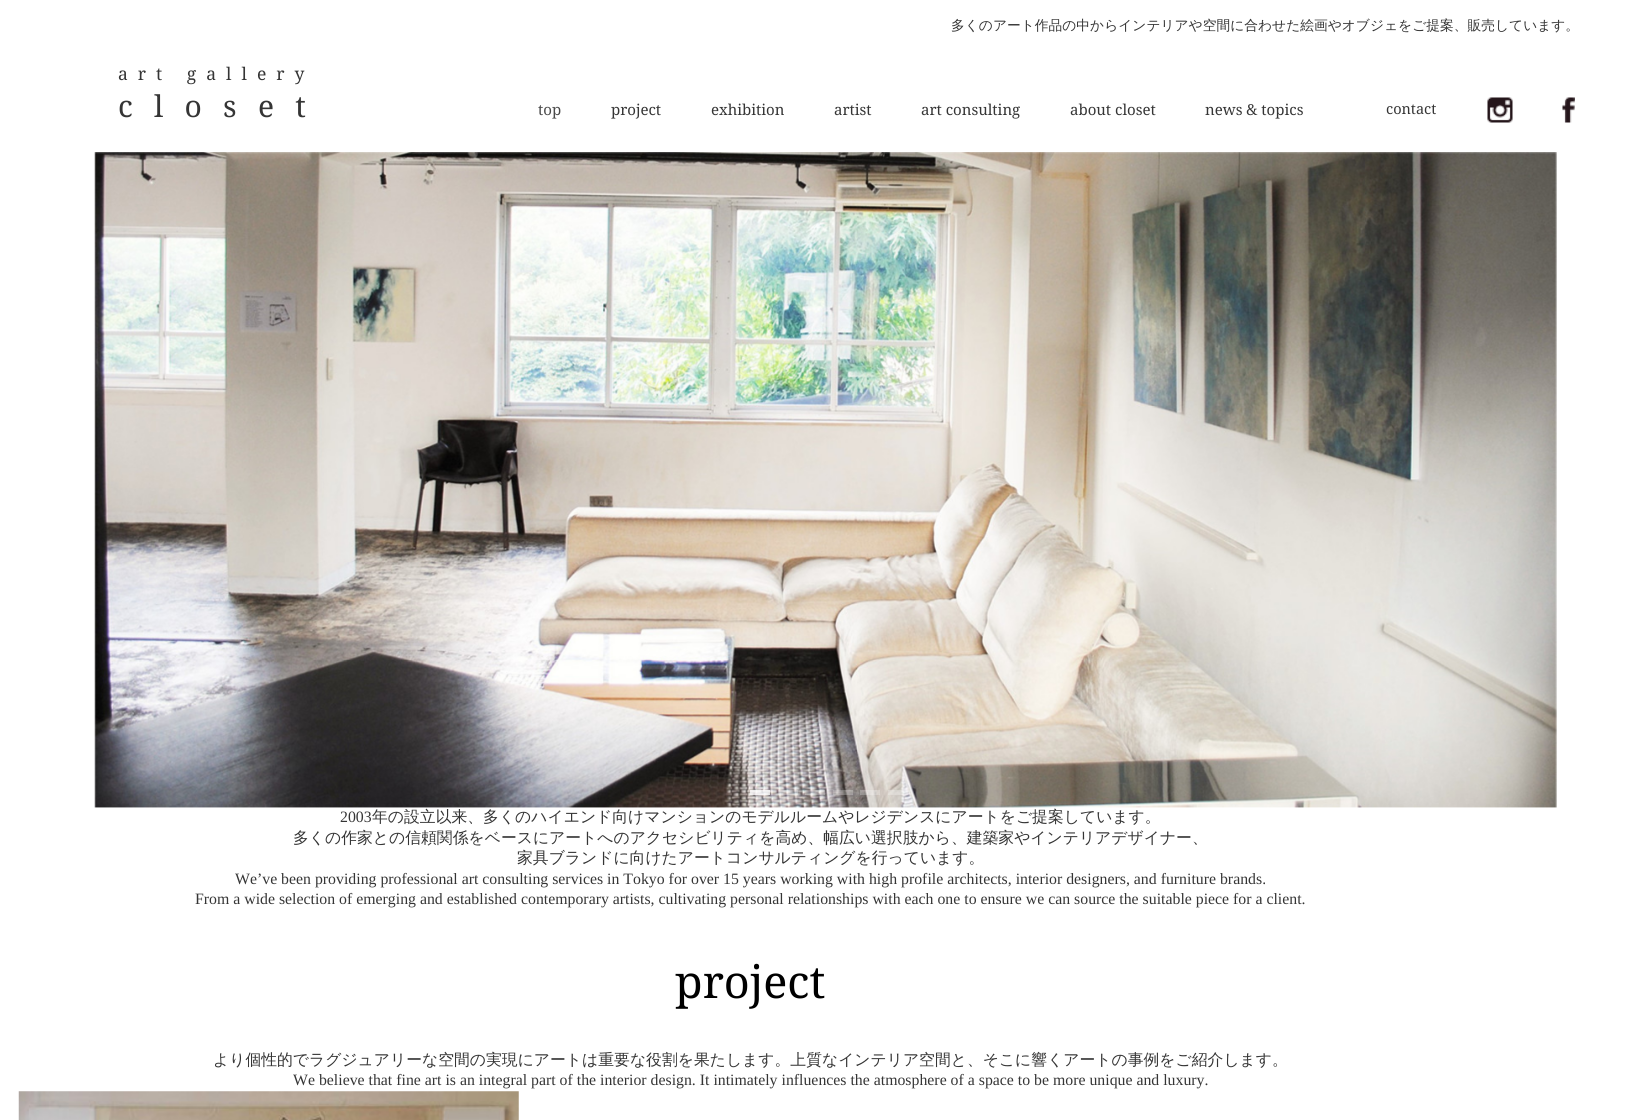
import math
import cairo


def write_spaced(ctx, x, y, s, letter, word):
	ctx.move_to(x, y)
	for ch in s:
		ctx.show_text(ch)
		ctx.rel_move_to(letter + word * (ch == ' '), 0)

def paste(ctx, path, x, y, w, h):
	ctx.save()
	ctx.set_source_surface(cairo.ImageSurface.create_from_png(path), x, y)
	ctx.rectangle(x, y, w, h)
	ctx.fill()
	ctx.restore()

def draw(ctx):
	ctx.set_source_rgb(1, 1, 1)
	ctx.paint()
	ctx.select_font_face('WenQuanYi Zen Hei Medium')
	ctx.set_font_size(13.75)
	ctx.set_source_rgb(0.208, 0.208, 0.208)
	ctx.move_to(951, 30)
	ctx.show_text('多くのアート作品の中からインテリアや空間に合わせた絵画やオブジェをご提案、販売しています。')
	ctx.select_font_face('Noto Serif')
	ctx.set_font_size(17.5)
	write_spaced(ctx, 118, 80, 'art gallery', 10, 0)
	ctx.set_font_size(30)
	write_spaced(ctx, 118, 117, 'closet', 21.25, 0)
	ctx.set_font_size(15)
	ctx.set_source_rgb(0.286, 0.286, 0.286)
	ctx.move_to(538, 115)
	ctx.show_text('top')
	ctx.set_source_rgb(0.208, 0.208, 0.208)
	for x, y, s in [
		(611, 115, 'project'),
		(711, 115, 'exhibition'),
		(834, 115, 'artist'),
		(921, 115, 'art consulting'),
		(1070, 115, 'about closet'),
		(1205, 115, 'news & topics'),
	]:
		ctx.move_to(x, y)
		ctx.show_text(s)
	ctx.set_font_size(14.5)
	ctx.move_to(1386, 114)
	ctx.show_text('contact')
	paste(ctx, 'media/1.png', 1487, 97, 26, 26)
	paste(ctx, 'media/2.png', 1562, 97, 13, 26)
	paste(ctx, 'media/3.png', 94, 152, 1463, 656)
	ctx.set_source_rgba(1, 1, 1, 0.75)
	ctx.rectangle(750, 790, 20, 5)
	ctx.fill()
	ctx.set_source_rgba(1, 1, 1, 0.25)
	ctx.rectangle(778, 790, 20, 5)
	ctx.fill()
	ctx.rectangle(805, 790, 20, 5)
	ctx.fill()
	ctx.rectangle(833, 790, 20, 5)
	ctx.fill()
	ctx.rectangle(860, 790, 20, 5)
	ctx.fill()
	ctx.rectangle(888, 790, 20, 5)
	ctx.fill()
	ctx.select_font_face('Liberation Serif')
	ctx.set_font_size(15.82)
	ctx.set_source_rgb(0.208, 0.208, 0.208)
	ctx.move_to(340, 822)
	ctx.show_text('2003')
	ctx.select_font_face('WenQuanYi Zen Hei Medium')
	for x, y, s in [
		(372, 822, '年の設立以来、多くのハイエンド向けマンションのモデルルームやレジデンスにアートをご提案しています。'),
		(293, 843, '多くの作家との信頼関係をベースにアートへのアクセシビリティを高め、幅広い選択肢から、建築家やインテリアデザイナー、'),
		(517, 863, '家具ブランドに向けたアートコンサルティングを行っています。'),
	]:
		ctx.move_to(x, y)
		ctx.show_text(s)
	ctx.select_font_face('Liberation Serif')
	ctx.move_to(235, 884)
	ctx.show_text('We’ve been providing professional art consulting services in Tokyo for over 15 years working with high profile architects, interior designers, and furniture brands.')
	ctx.move_to(195, 904)
	ctx.show_text('From a wide selection of emerging and established contemporary artists, cultivating personal relationships with each one to ensure we can source the suitable piece for a client.')
	ctx.select_font_face('Noto Serif')
	ctx.set_font_size(45)
	ctx.set_source_rgb(0, 0, 0)
	ctx.move_to(675, 998)
	ctx.show_text('project')
	ctx.select_font_face('WenQuanYi Zen Hei Medium')
	ctx.set_font_size(15.82)
	ctx.set_source_rgb(0.208, 0.208, 0.208)
	ctx.move_to(213, 1065)
	ctx.show_text('より個性的でラグジュアリーな空間の実現にアートは重要な役割を果たします。上質なインテリア空間と、そこに響くアートの事例をご紹介します。')
	ctx.select_font_face('Liberation Serif')
	ctx.move_to(293, 1085)
	ctx.show_text('We believe that fine art is an integral part of the interior design. It intimately influences the atmosphere of a space to be more unique and luxury.')
	paste(ctx, 'media/4.png', 18, 1091, 501, 29)


surface = cairo.ImageSurface(cairo.FORMAT_RGB24, 1648, 1120)
ctx = cairo.Context(surface)
options = cairo.FontOptions()
options.set_hint_metrics(cairo.HINT_METRICS_OFF)
options.set_hint_style(cairo.HINT_STYLE_NONE)
ctx.set_font_options(options)
ctx.set_miter_limit(4)
draw(ctx)
surface.write_to_png('image.png')
